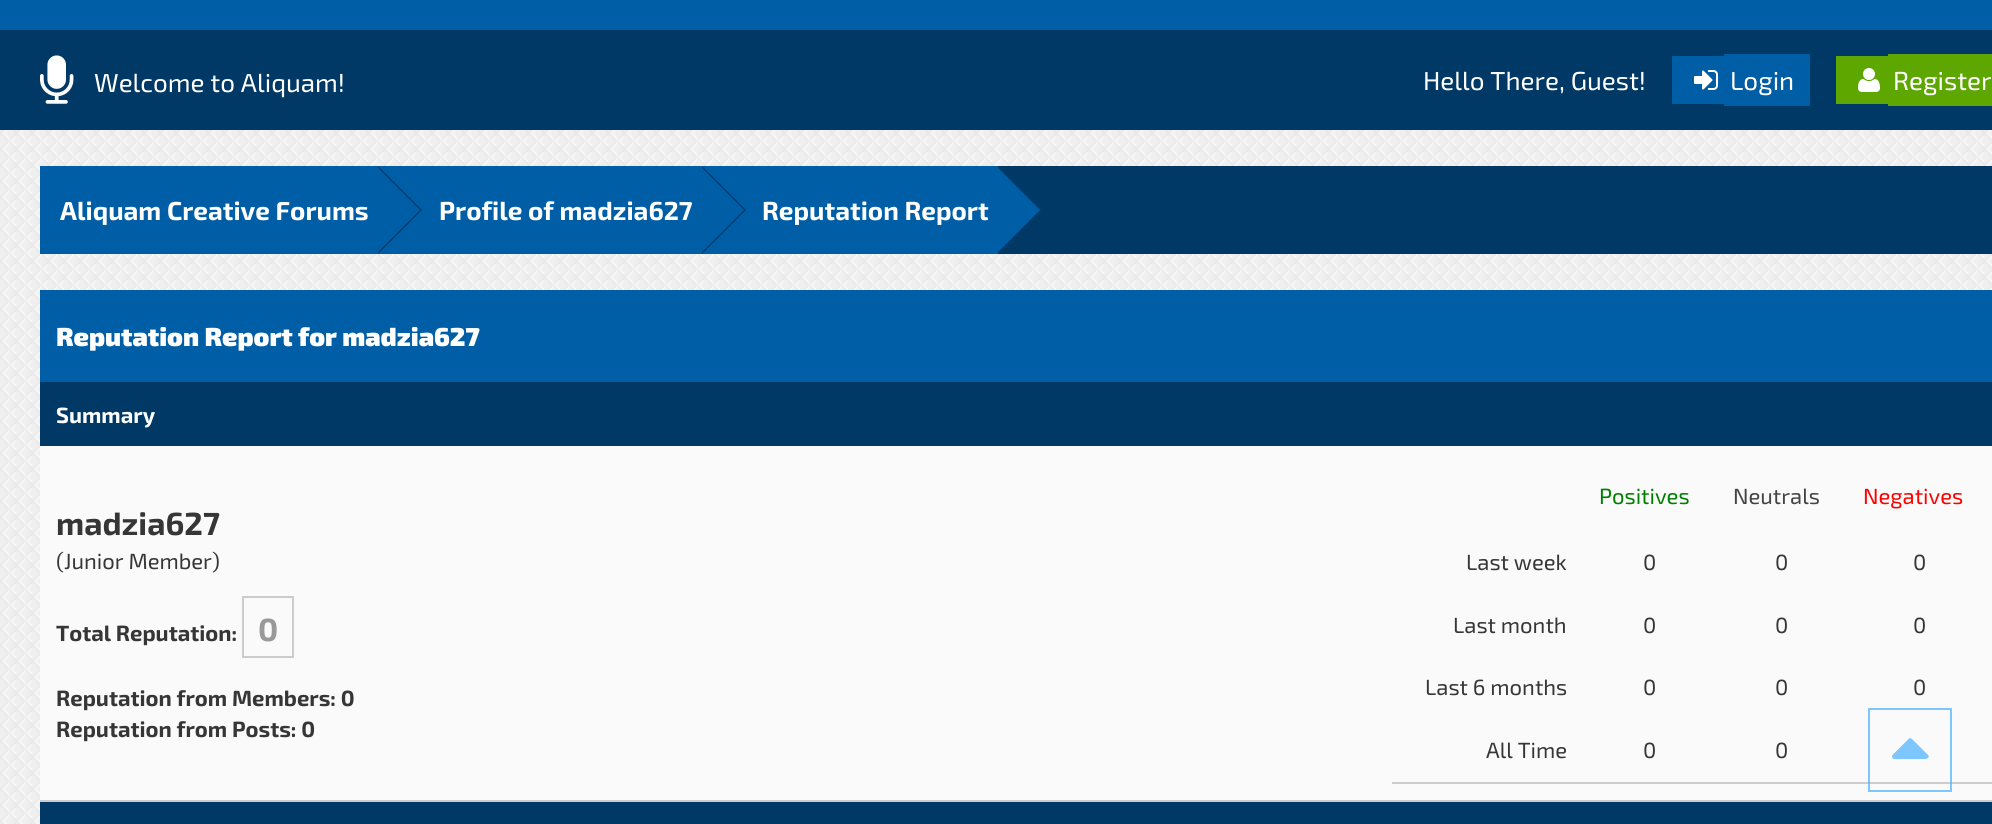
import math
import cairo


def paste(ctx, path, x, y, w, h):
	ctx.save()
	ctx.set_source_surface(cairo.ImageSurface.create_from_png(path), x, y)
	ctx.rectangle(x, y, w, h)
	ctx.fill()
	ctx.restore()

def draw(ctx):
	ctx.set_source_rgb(0.937, 0.937, 0.937)
	ctx.paint()
	paste(ctx, 'media/1.png', 0, 130, 1992, 694)
	ctx.set_source_rgb(0, 0.369, 0.655)
	ctx.rectangle(0, 0, 1992, 30)
	ctx.fill()
	ctx.set_source_rgb(0, 0.224, 0.396)
	ctx.rectangle(0, 30, 1992, 100)
	ctx.fill()
	paste(ctx, 'media/2.png', 40, 55, 34, 49)
	ctx.select_font_face('Exo 2')
	ctx.set_font_size(26)
	ctx.set_source_rgb(1, 1, 1)
	ctx.move_to(94, 92)
	ctx.show_text('Welcome to Aliquam!')
	ctx.move_to(1423, 90)
	ctx.show_text('Hello There, Guest!')
	ctx.set_source_rgb(0, 0.369, 0.655)
	ctx.rectangle(1672, 56, 52, 48)
	ctx.fill()
	ctx.rectangle(1724, 54, 86, 52)
	ctx.fill()
	paste(ctx, 'media/3.png', 1694, 70, 24, 20)
	ctx.set_source_rgb(1, 1, 1)
	ctx.move_to(1730, 90)
	ctx.show_text('Login')
	ctx.set_source_rgb(0.369, 0.655, 0)
	ctx.rectangle(1836, 56, 52, 48)
	ctx.fill()
	ctx.rectangle(1888, 54, 104, 52)
	ctx.fill()
	paste(ctx, 'media/4.png', 1858, 68, 22, 24)
	ctx.set_source_rgb(1, 1, 1)
	ctx.move_to(1893, 90)
	ctx.show_text('Register')
	ctx.set_source_rgb(0, 0.224, 0.396)
	ctx.rectangle(998, 166, 994, 88)
	ctx.fill()
	ctx.set_source_rgb(0, 0.369, 0.655)
	ctx.rectangle(40, 166, 958, 88)
	ctx.fill()
	ctx.select_font_face('Exo 2', cairo.FONT_SLANT_NORMAL, cairo.FONT_WEIGHT_BOLD)
	ctx.set_source_rgb(1, 1, 1)
	ctx.move_to(60, 220)
	ctx.show_text('Aliquam Creative Forums')
	ctx.set_source_rgb(0, 0.235, 0.427)
	ctx.new_path()
	ctx.move_to(378, 254)
	ctx.line_to(378, 166)
	ctx.line_to(422, 210)
	ctx.close_path()
	ctx.fill()
	ctx.save()
	ctx.rectangle(40, 166, 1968, 88)
	ctx.clip()
	ctx.set_source_rgb(0, 0.369, 0.655)
	ctx.new_path()
	ctx.move_to(374, 256)
	ctx.line_to(374, 164)
	ctx.line_to(420, 210)
	ctx.close_path()
	ctx.fill()
	ctx.restore()
	ctx.set_source_rgb(1, 1, 1)
	ctx.move_to(439, 220)
	ctx.show_text('Profile of madzia627')
	ctx.set_source_rgb(0, 0.235, 0.427)
	ctx.new_path()
	ctx.move_to(702, 254)
	ctx.line_to(702, 166)
	ctx.line_to(746, 210)
	ctx.close_path()
	ctx.fill()
	ctx.save()
	ctx.rectangle(40, 166, 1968, 88)
	ctx.clip()
	ctx.set_source_rgb(0, 0.369, 0.655)
	ctx.new_path()
	ctx.move_to(698, 256)
	ctx.line_to(698, 164)
	ctx.line_to(744, 210)
	ctx.close_path()
	ctx.fill()
	ctx.restore()
	ctx.set_source_rgb(1, 1, 1)
	ctx.move_to(762, 220)
	ctx.show_text('Reputation Report')
	ctx.set_source_rgb(0, 0.235, 0.427)
	ctx.new_path()
	ctx.move_to(998, 254)
	ctx.line_to(998, 166)
	ctx.line_to(1042, 210)
	ctx.close_path()
	ctx.fill()
	ctx.save()
	ctx.rectangle(40, 166, 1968, 88)
	ctx.clip()
	ctx.set_source_rgb(0, 0.369, 0.655)
	ctx.new_path()
	ctx.move_to(994, 256)
	ctx.line_to(994, 164)
	ctx.line_to(1040, 210)
	ctx.close_path()
	ctx.fill()
	ctx.restore()
	ctx.set_source_rgb(0, 0.369, 0.655)
	ctx.rectangle(40, 290, 1952, 92)
	ctx.fill()
	ctx.select_font_face('Exo 2 Black')
	ctx.set_source_rgb(1, 1, 1)
	ctx.move_to(56, 346)
	ctx.show_text('Reputation Report for madzia627')
	ctx.set_source_rgb(0, 0.224, 0.396)
	ctx.rectangle(40, 382, 1952, 64)
	ctx.fill()
	ctx.select_font_face('Exo 2', cairo.FONT_SLANT_NORMAL, cairo.FONT_WEIGHT_BOLD)
	ctx.set_font_size(22)
	ctx.set_source_rgb(1, 1, 1)
	ctx.move_to(56, 423)
	ctx.show_text('Summary')
	ctx.set_source_rgb(0.98, 0.98, 0.98)
	ctx.rectangle(40, 446, 1952, 354)
	ctx.fill()
	ctx.set_source_rgb(0.8, 0.8, 0.8)
	ctx.rectangle(40, 800, 1952, 2)
	ctx.fill()
	ctx.set_font_size(32)
	ctx.set_source_rgb(0.212, 0.212, 0.212)
	ctx.move_to(56, 535)
	ctx.show_text('madzia627')
	ctx.select_font_face('Exo 2')
	ctx.set_font_size(22)
	ctx.move_to(56, 569)
	ctx.show_text('(Junior Member)')
	ctx.select_font_face('Exo 2', cairo.FONT_SLANT_NORMAL, cairo.FONT_WEIGHT_BOLD)
	ctx.move_to(56, 641)
	ctx.show_text('Total Reputation:')
	ctx.rectangle(243, 597, 50, 60)
	ctx.set_source_rgb(0.8, 0.8, 0.8)
	ctx.stroke()
	ctx.set_font_size(32)
	ctx.set_source_rgb(0.6, 0.6, 0.6)
	ctx.move_to(258, 641)
	ctx.show_text('0')
	ctx.set_font_size(22)
	ctx.set_source_rgb(0.212, 0.212, 0.212)
	ctx.move_to(56, 706)
	ctx.show_text('Reputation from Members: 0')
	ctx.move_to(56, 737)
	ctx.show_text('Reputation from Posts: 0')
	ctx.set_source_rgb(0.8, 0.8, 0.8)
	ctx.rectangle(1392, 782, 600, 2)
	ctx.fill()
	ctx.select_font_face('Exo 2')
	ctx.set_source_rgb(0, 0.502, 0)
	ctx.move_to(1599, 504)
	ctx.show_text('Positives')
	ctx.set_source_rgb(0.267, 0.267, 0.267)
	ctx.move_to(1733, 504)
	ctx.show_text('Neutrals')
	ctx.set_source_rgb(1, 0, 0)
	ctx.move_to(1863, 504)
	ctx.show_text('Negatives')
	ctx.set_source_rgb(0.212, 0.212, 0.212)
	for x, y, s in [
		(1466, 570, 'Last week'),
		(1643, 570, '0'),
		(1775, 570, '0'),
		(1913, 570, '0'),
		(1453, 633, 'Last month'),
		(1643, 633, '0'),
		(1775, 633, '0'),
		(1913, 633, '0'),
		(1425, 695, 'Last 6 months'),
		(1643, 695, '0'),
		(1775, 695, '0'),
		(1913, 695, '0'),
		(1486, 758, 'All Time'),
		(1643, 758, '0'),
		(1775, 758, '0'),
	]:
		ctx.move_to(x, y)
		ctx.show_text(s)
	ctx.set_source_rgb(0, 0.224, 0.396)
	ctx.rectangle(40, 802, 1952, 22)
	ctx.fill()
	ctx.rectangle(1869, 709, 82, 82)
	ctx.set_source_rgba(0.329, 0.706, 1, 0.75)
	ctx.stroke()
	ctx.new_path()
	ctx.move_to(1928, 755)
	ctx.line_to(1928.5, 755.5)
	ctx.curve_to(1930, 760, 1922, 759, 1921, 759)
	ctx.line_to(1894, 759)
	ctx.curve_to(1892, 758.5, 1891.5, 756, 1892.5, 755)
	ctx.line_to(1906, 741.5)
	ctx.curve_to(1910.5, 737, 1910, 737, 1914.5, 741.5)
	ctx.close_path()
	ctx.fill()


surface = cairo.ImageSurface(cairo.FORMAT_RGB24, 1992, 824)
ctx = cairo.Context(surface)
options = cairo.FontOptions()
options.set_hint_metrics(cairo.HINT_METRICS_OFF)
options.set_hint_style(cairo.HINT_STYLE_NONE)
ctx.set_font_options(options)
ctx.set_miter_limit(4)
draw(ctx)
surface.write_to_png('image.png')
